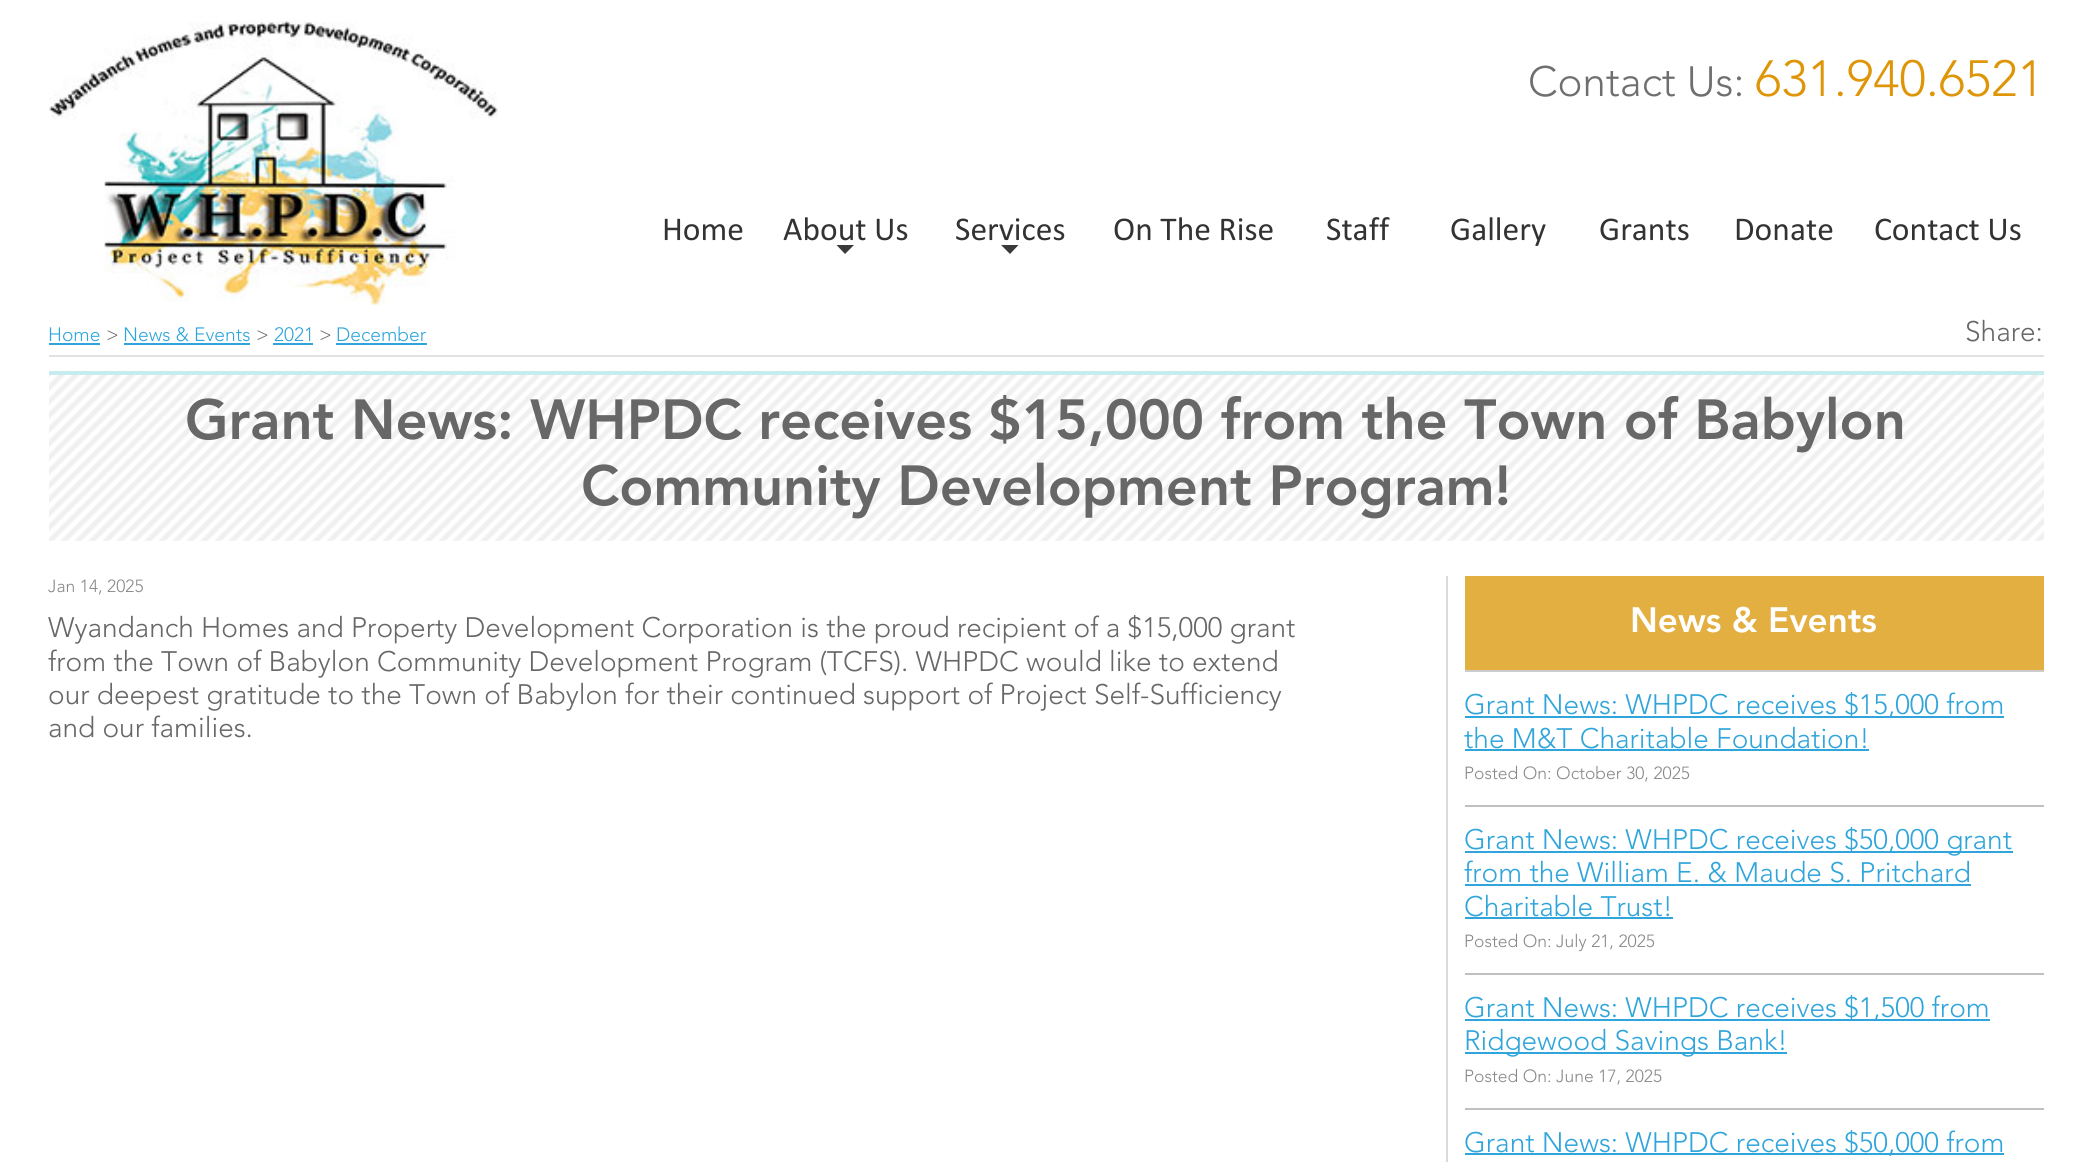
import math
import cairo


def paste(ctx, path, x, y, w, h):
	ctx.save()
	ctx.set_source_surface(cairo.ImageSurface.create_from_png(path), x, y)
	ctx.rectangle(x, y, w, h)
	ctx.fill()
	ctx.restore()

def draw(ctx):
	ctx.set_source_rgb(1, 1, 1)
	ctx.paint()
	paste(ctx, 'media/1.png', 49, 21, 449, 284)
	ctx.select_font_face('Avenir Light')
	ctx.set_font_size(42)
	ctx.set_source_rgb(0.435, 0.435, 0.435)
	ctx.move_to(1528, 96)
	ctx.show_text('Contact Us:')
	ctx.set_font_size(50.5)
	ctx.set_source_rgb(0.871, 0.588, 0.035)
	ctx.move_to(1755, 96)
	ctx.show_text('631.940.6521')
	ctx.select_font_face('Calibri')
	ctx.set_font_size(33.5)
	ctx.set_source_rgb(0.2, 0.2, 0.2)
	ctx.move_to(662, 240)
	ctx.show_text('Home')
	ctx.move_to(783, 240)
	ctx.show_text('About Us')
	ctx.set_source_rgb(0.227, 0.227, 0.227)
	ctx.new_path()
	ctx.move_to(836.5, 245)
	ctx.line_to(854, 245)
	ctx.line_to(845, 254)
	ctx.close_path()
	ctx.fill()
	ctx.set_source_rgb(0.2, 0.2, 0.2)
	ctx.move_to(955, 240)
	ctx.show_text('Services')
	ctx.set_source_rgb(0.227, 0.227, 0.227)
	ctx.new_path()
	ctx.move_to(1001, 245)
	ctx.line_to(1018.5, 245)
	ctx.line_to(1010, 254)
	ctx.close_path()
	ctx.fill()
	ctx.set_source_rgb(0.2, 0.2, 0.2)
	for x, y, s in [
		(1113, 240, 'On The Rise'),
		(1326, 240, 'Staff'),
		(1450, 240, 'Gallery'),
		(1599, 240, 'Grants'),
		(1734, 240, 'Donate'),
		(1874, 240, 'Contact Us'),
	]:
		ctx.move_to(x, y)
		ctx.show_text(s)
	ctx.set_source_rgb(0.882, 0.882, 0.882)
	ctx.rectangle(49, 355, 1995, 2)
	ctx.fill()
	ctx.select_font_face('Avenir Light')
	ctx.set_font_size(19.25)
	ctx.set_source_rgb(0.188, 0.647, 0.859)
	ctx.move_to(48, 341)
	ctx.show_text('Home')
	ctx.rectangle(49, 343, 51, 2)
	ctx.fill()
	ctx.set_source_rgb(0.404, 0.404, 0.404)
	ctx.move_to(106, 341)
	ctx.show_text('>')
	ctx.set_source_rgb(0.188, 0.647, 0.859)
	ctx.move_to(123, 341)
	ctx.show_text('News & Events')
	ctx.rectangle(124, 343, 126, 2)
	ctx.fill()
	ctx.set_source_rgb(0.404, 0.404, 0.404)
	ctx.move_to(256, 341)
	ctx.show_text('>')
	ctx.set_source_rgb(0.188, 0.647, 0.859)
	ctx.move_to(274, 341)
	ctx.show_text('2021')
	ctx.rectangle(273, 343, 40, 2)
	ctx.fill()
	ctx.set_source_rgb(0.404, 0.404, 0.404)
	ctx.move_to(319, 341)
	ctx.show_text('>')
	ctx.set_source_rgb(0.188, 0.647, 0.859)
	ctx.move_to(336, 341)
	ctx.show_text('December')
	ctx.rectangle(336, 343, 91, 2)
	ctx.fill()
	ctx.set_font_size(28)
	ctx.set_source_rgb(0.404, 0.404, 0.404)
	ctx.move_to(1965, 341)
	ctx.show_text('Share:')
	paste(ctx, 'media/2.png', 49, 375, 1995, 166)
	ctx.set_source_rgb(0.78, 0.925, 0.929)
	ctx.rectangle(49, 371, 1995, 4)
	ctx.fill()
	ctx.select_font_face('Avenir Black')
	ctx.set_font_size(56)
	ctx.set_source_rgb(0.404, 0.404, 0.404)
	ctx.move_to(185, 439)
	ctx.show_text('Grant News: WHPDC receives $15,000 from the Town of Babylon')
	ctx.move_to(581, 505)
	ctx.show_text('Community Development Program!')
	ctx.select_font_face('Avenir Light')
	ctx.set_font_size(17.5)
	ctx.set_source_rgb(0.533, 0.533, 0.533)
	ctx.move_to(48, 592)
	ctx.show_text('Jan 14, 2025')
	ctx.set_font_size(28)
	ctx.set_source_rgb(0.404, 0.404, 0.404)
	for x, y, s in [
		(48, 637, 'Wyandanch Homes and Property Development Corporation is the proud recipient of a $15,000 grant'),
		(48, 671, 'from the Town of Babylon Community Development Program (TCFS). WHPDC would like to extend'),
		(48, 704, 'our deepest gratitude to the Town of Babylon for their continued support of Project Self-Sufficiency'),
		(48, 737, 'and our families.'),
	]:
		ctx.move_to(x, y)
		ctx.show_text(s)
	ctx.set_source_rgb(0.855, 0.855, 0.855)
	ctx.rectangle(1446, 576, 2, 586)
	ctx.fill()
	ctx.set_source_rgb(0.89, 0.686, 0.255)
	ctx.rectangle(1465, 576, 579, 94)
	ctx.fill()
	ctx.set_source_rgb(0.8, 0.8, 0.8)
	ctx.rectangle(1465, 670, 579, 2)
	ctx.fill()
	ctx.select_font_face('Avenir Black')
	ctx.set_font_size(35)
	ctx.set_source_rgb(1, 1, 1)
	ctx.move_to(1630, 632)
	ctx.show_text('News & Events')
	ctx.set_source_rgb(0.753, 0.753, 0.753)
	ctx.rectangle(1465, 805, 579, 2)
	ctx.fill()
	ctx.set_source_rgb(0.188, 0.647, 0.859)
	ctx.rectangle(1465, 716, 539, 2)
	ctx.fill()
	ctx.select_font_face('Avenir Light')
	ctx.set_font_size(28)
	ctx.move_to(1464, 714)
	ctx.show_text('Grant News: WHPDC receives $15,000 from')
	ctx.move_to(1464, 748)
	ctx.show_text('the M&T Charitable Foundation!')
	ctx.rectangle(1465, 749, 404, 2)
	ctx.fill()
	ctx.set_font_size(17.5)
	ctx.set_source_rgb(0.533, 0.533, 0.533)
	ctx.move_to(1464, 779)
	ctx.show_text('Posted On: October 30, 2025')
	ctx.set_source_rgb(0.753, 0.753, 0.753)
	ctx.rectangle(1465, 973, 579, 2)
	ctx.fill()
	ctx.set_source_rgb(0.188, 0.647, 0.859)
	ctx.rectangle(1465, 851, 548, 2)
	ctx.fill()
	ctx.set_font_size(28)
	ctx.move_to(1464, 849)
	ctx.show_text('Grant News: WHPDC receives $50,000 grant')
	ctx.move_to(1464, 882)
	ctx.show_text('from the William E. & Maude S. Pritchard')
	ctx.rectangle(1465, 884, 506, 2)
	ctx.fill()
	ctx.move_to(1464, 916)
	ctx.show_text('Charitable Trust!')
	ctx.rectangle(1465, 917, 208, 2)
	ctx.fill()
	ctx.set_font_size(17.5)
	ctx.set_source_rgb(0.533, 0.533, 0.533)
	ctx.move_to(1464, 947)
	ctx.show_text('Posted On: July 21, 2025')
	ctx.set_source_rgb(0.753, 0.753, 0.753)
	ctx.rectangle(1465, 1108, 579, 2)
	ctx.fill()
	ctx.set_source_rgb(0.188, 0.647, 0.859)
	ctx.rectangle(1465, 1019, 525, 2)
	ctx.fill()
	ctx.set_font_size(28)
	ctx.move_to(1464, 1017)
	ctx.show_text('Grant News: WHPDC receives $1,500 from')
	ctx.rectangle(1465, 1052, 322, 2)
	ctx.fill()
	ctx.move_to(1464, 1050)
	ctx.show_text('Ridgewood Savings Bank!')
	ctx.set_font_size(17.5)
	ctx.set_source_rgb(0.533, 0.533, 0.533)
	ctx.move_to(1464, 1082)
	ctx.show_text('Posted On: June 17, 2025')
	ctx.set_source_rgb(0.188, 0.647, 0.859)
	ctx.rectangle(1465, 1153, 539, 2)
	ctx.fill()
	ctx.set_font_size(28)
	ctx.move_to(1464, 1152)
	ctx.show_text('Grant News: WHPDC receives $50,000 from')


surface = cairo.ImageSurface(cairo.FORMAT_RGB24, 2090, 1162)
ctx = cairo.Context(surface)
options = cairo.FontOptions()
options.set_hint_metrics(cairo.HINT_METRICS_OFF)
options.set_hint_style(cairo.HINT_STYLE_NONE)
ctx.set_font_options(options)
ctx.set_miter_limit(4)
draw(ctx)
surface.write_to_png('image.png')
